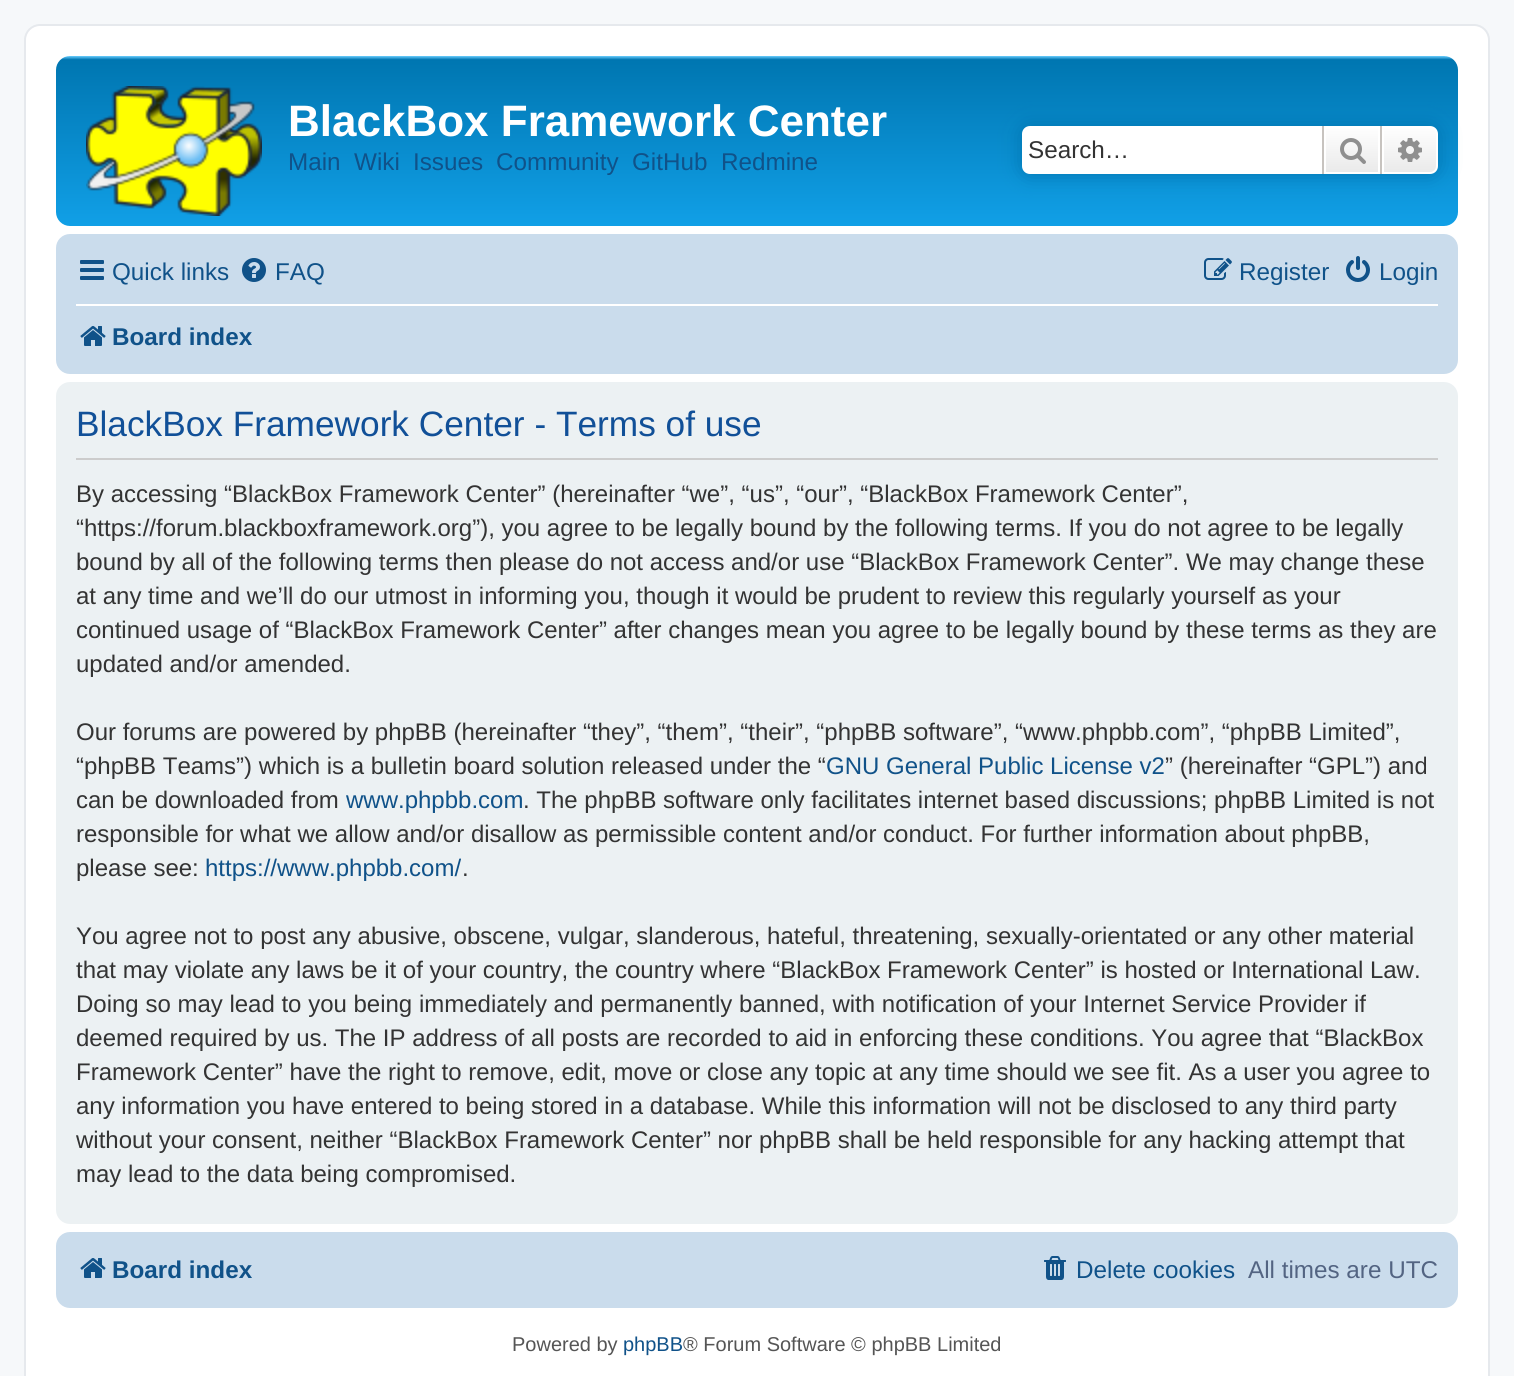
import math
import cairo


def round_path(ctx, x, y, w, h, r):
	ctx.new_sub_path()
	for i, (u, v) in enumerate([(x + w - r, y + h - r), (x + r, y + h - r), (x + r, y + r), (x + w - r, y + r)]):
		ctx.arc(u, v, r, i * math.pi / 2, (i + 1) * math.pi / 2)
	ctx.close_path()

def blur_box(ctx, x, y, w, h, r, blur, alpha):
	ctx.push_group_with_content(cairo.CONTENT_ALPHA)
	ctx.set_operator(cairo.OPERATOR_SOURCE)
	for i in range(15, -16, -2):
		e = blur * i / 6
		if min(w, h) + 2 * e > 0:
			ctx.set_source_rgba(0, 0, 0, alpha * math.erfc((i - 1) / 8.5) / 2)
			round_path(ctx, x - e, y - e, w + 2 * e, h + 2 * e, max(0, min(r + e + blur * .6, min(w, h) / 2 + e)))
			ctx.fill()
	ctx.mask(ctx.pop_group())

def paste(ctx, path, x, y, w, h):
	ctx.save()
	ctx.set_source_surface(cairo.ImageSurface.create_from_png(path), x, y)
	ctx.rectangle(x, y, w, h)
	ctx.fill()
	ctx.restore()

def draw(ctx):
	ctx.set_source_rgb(0.961, 0.969, 0.98)
	ctx.paint()
	ctx.set_source_rgb(1, 1, 1)
	round_path(ctx, 25, 25, 1464, 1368, 15)
	ctx.fill_preserve()
	ctx.set_source_rgb(0.902, 0.914, 0.929)
	ctx.stroke()
	gradient = cairo.LinearGradient(757, 56, 757, 240)
	gradient.add_color_stop_rgba(0, 0.416, 0.808, 1, 1)
	gradient.add_color_stop_rgba(0.02, 0, 0.463, 0.694, 1)
	gradient.add_color_stop_rgba(1, 0.071, 0.639, 0.922, 1)
	ctx.set_source(gradient)
	round_path(ctx, 56, 56, 1402, 170, 14)
	ctx.fill()
	paste(ctx, 'media/1.png', 86, 86, 176, 130)
	ctx.select_font_face('Liberation Sans', cairo.FONT_SLANT_NORMAL, cairo.FONT_WEIGHT_BOLD)
	ctx.set_font_size(44)
	ctx.set_source_rgb(1, 1, 1)
	ctx.move_to(288, 136)
	ctx.show_text('BlackBox Framework Center')
	ctx.select_font_face('Liberation Sans')
	ctx.set_font_size(24.25)
	ctx.set_source_rgb(0.063, 0.322, 0.537)
	for x, y, s in [
		(288, 170, 'Main'),
		(354, 170, 'Wiki'),
		(413, 170, 'Issues'),
		(496, 170, 'Community'),
		(632, 170, 'GitHub'),
		(721, 170, 'Redmine'),
	]:
		ctx.move_to(x, y)
		ctx.show_text(s)
	ctx.set_source_rgb(0, 0.459, 0.69)
	blur_box(ctx, 1022, 126, 416, 48, 8, 10, 1)
	ctx.set_source_rgb(1, 1, 1)
	ctx.new_path()
	ctx.move_to(1030, 126)
	ctx.line_to(1322, 126)
	ctx.line_to(1322, 174)
	ctx.line_to(1030, 174)
	ctx.curve_to(1025.5, 174, 1022, 170.5, 1022, 166)
	ctx.line_to(1022, 134)
	ctx.curve_to(1022, 129.5, 1025.5, 126, 1030, 126)
	ctx.close_path()
	ctx.fill()
	ctx.set_source_rgb(0.2, 0.2, 0.2)
	ctx.move_to(1028, 158)
	ctx.show_text('Search…')
	gradient = cairo.LinearGradient(1352, 126, 1352, 174)
	gradient.add_color_stop_rgba(0, 1, 1, 1, 1)
	gradient.add_color_stop_rgba(1, 0.914, 0.914, 0.914, 1)
	ctx.set_source(gradient)
	ctx.rectangle(1326, 128, 52, 44)
	ctx.fill()
	ctx.rectangle(1325, 127, 54, 46)
	ctx.set_source_rgb(1, 1, 1)
	ctx.stroke()
	ctx.set_source_rgb(0.78, 0.765, 0.749)
	ctx.rectangle(1380, 126, 2, 48)
	ctx.fill()
	ctx.rectangle(1322, 126, 2, 48)
	ctx.fill()
	paste(ctx, 'media/2.png', 1340, 138, 26, 26)
	gradient = cairo.LinearGradient(1410, 126, 1410, 174)
	gradient.add_color_stop_rgba(0, 1, 1, 1, 1)
	gradient.add_color_stop_rgba(1, 0.914, 0.914, 0.914, 1)
	ctx.set_source(gradient)
	ctx.new_path()
	ctx.move_to(1383, 127)
	ctx.line_to(1430, 127)
	ctx.curve_to(1434, 127, 1437, 130, 1437, 134)
	ctx.line_to(1437, 166)
	ctx.curve_to(1437, 170, 1434, 173, 1430, 173)
	ctx.line_to(1383, 173)
	ctx.close_path()
	ctx.fill_preserve()
	ctx.set_source_rgb(1, 1, 1)
	ctx.stroke()
	paste(ctx, 'media/3.png', 1398, 138, 24, 24)
	ctx.set_source_rgb(0.792, 0.863, 0.922)
	round_path(ctx, 56, 234, 1402, 140, 14)
	ctx.fill()
	paste(ctx, 'media/4.png', 80, 260, 24, 20)
	ctx.set_source_rgb(0.063, 0.322, 0.537)
	ctx.move_to(112, 280)
	ctx.show_text('Quick links')
	paste(ctx, 'media/5.png', 242, 258, 24, 24)
	ctx.move_to(275, 280)
	ctx.show_text('FAQ')
	paste(ctx, 'media/6.png', 1204, 258, 28, 22)
	ctx.move_to(1239, 280)
	ctx.show_text('Register')
	paste(ctx, 'media/7.png', 1346, 256, 24, 26)
	ctx.move_to(1379, 280)
	ctx.show_text('Login')
	ctx.set_source_rgb(1, 1, 1)
	ctx.rectangle(76, 304, 1362, 2)
	ctx.fill()
	paste(ctx, 'media/8.png', 80, 326, 26, 20)
	ctx.select_font_face('Liberation Sans', cairo.FONT_SLANT_NORMAL, cairo.FONT_WEIGHT_BOLD)
	ctx.set_source_rgb(0.063, 0.322, 0.537)
	ctx.move_to(112, 345)
	ctx.show_text('Board index')
	ctx.set_source_rgb(0.925, 0.945, 0.953)
	round_path(ctx, 56, 382, 1402, 842, 14)
	ctx.fill()
	ctx.set_source_rgb(0.8, 0.8, 0.8)
	ctx.rectangle(76, 458, 1362, 2)
	ctx.fill()
	ctx.select_font_face('Liberation Sans')
	ctx.set_font_size(35.25)
	ctx.set_source_rgb(0.067, 0.314, 0.596)
	ctx.move_to(76, 436)
	ctx.show_text('BlackBox Framework Center - Terms of use')
	ctx.set_font_size(24)
	ctx.set_source_rgb(0.2, 0.2, 0.2)
	for x, y, s in [
		(76, 502, 'By accessing “BlackBox Framework Center” (hereinafter “we”, “us”, “our”, “BlackBox Framework Center”,'),
		(76, 536, '“https://forum.blackboxframework.org”), you agree to be legally bound by the following terms. If you do not agree to be legally'),
		(76, 570, 'bound by all of the following terms then please do not access and/or use “BlackBox Framework Center”. We may change these'),
		(76, 604, 'at any time and we’ll do our utmost in informing you, though it would be prudent to review this regularly yourself as your'),
		(76, 638, 'continued usage of “BlackBox Framework Center” after changes mean you agree to be legally bound by these terms as they are'),
		(76, 672, 'updated and/or amended.'),
		(76, 740, 'Our forums are powered by phpBB (hereinafter “they”, “them”, “their”, “phpBB software”, “www.phpbb.com”, “phpBB Limited”,'),
		(76, 774, '“phpBB Teams”) which is a bulletin board solution released under the “'),
	]:
		ctx.move_to(x, y)
		ctx.show_text(s)
	ctx.set_source_rgb(0.063, 0.322, 0.537)
	ctx.move_to(826, 774)
	ctx.show_text('GNU General Public License v2')
	ctx.set_source_rgb(0.2, 0.2, 0.2)
	ctx.move_to(1165, 774)
	ctx.show_text('” (hereinafter “GPL”) and')
	ctx.move_to(76, 808)
	ctx.show_text('can be downloaded from')
	ctx.set_source_rgb(0.063, 0.322, 0.537)
	ctx.move_to(346, 808)
	ctx.show_text('www.phpbb.com')
	ctx.set_source_rgb(0.2, 0.2, 0.2)
	for x, y, s in [
		(523, 808, '. The phpBB software only facilitates internet based discussions; phpBB Limited is not'),
		(76, 842, 'responsible for what we allow and/or disallow as permissible content and/or conduct. For further information about phpBB,'),
		(76, 876, 'please see:'),
	]:
		ctx.move_to(x, y)
		ctx.show_text(s)
	ctx.set_source_rgb(0.063, 0.322, 0.537)
	ctx.move_to(205, 876)
	ctx.show_text('https://www.phpbb.com/')
	ctx.set_source_rgb(0.2, 0.2, 0.2)
	for x, y, s in [
		(462, 876, '.'),
		(76, 944, 'You agree not to post any abusive, obscene, vulgar, slanderous, hateful, threatening, sexually-orientated or any other material'),
		(76, 978, 'that may violate any laws be it of your country, the country where “BlackBox Framework Center” is hosted or International Law.'),
		(76, 1012, 'Doing so may lead to you being immediately and permanently banned, with notification of your Internet Service Provider if'),
		(76, 1046, 'deemed required by us. The IP address of all posts are recorded to aid in enforcing these conditions. You agree that “BlackBox'),
		(76, 1080, 'Framework Center” have the right to remove, edit, move or close any topic at any time should we see fit. As a user you agree to'),
		(76, 1114, 'any information you have entered to being stored in a database. While this information will not be disclosed to any third party'),
		(76, 1148, 'without your consent, neither “BlackBox Framework Center” nor phpBB shall be held responsible for any hacking attempt that'),
		(76, 1182, 'may lead to the data being compromised.'),
	]:
		ctx.move_to(x, y)
		ctx.show_text(s)
	ctx.set_source_rgb(0.792, 0.863, 0.922)
	round_path(ctx, 56, 1232, 1402, 76, 14)
	ctx.fill()
	paste(ctx, 'media/8.png', 80, 1258, 26, 20)
	ctx.select_font_face('Liberation Sans', cairo.FONT_SLANT_NORMAL, cairo.FONT_WEIGHT_BOLD)
	ctx.set_font_size(24.25)
	ctx.set_source_rgb(0.063, 0.322, 0.537)
	ctx.move_to(112, 1278)
	ctx.show_text('Board index')
	paste(ctx, 'media/9.png', 1044, 1256, 22, 24)
	ctx.select_font_face('Liberation Sans')
	ctx.move_to(1076, 1278)
	ctx.show_text('Delete cookies')
	ctx.set_source_rgb(0.325, 0.392, 0.51)
	ctx.move_to(1248, 1278)
	ctx.show_text('All times are UTC')
	ctx.set_font_size(20)
	ctx.set_source_rgb(0.333, 0.333, 0.333)
	ctx.move_to(512, 1351)
	ctx.show_text('Powered by')
	ctx.set_source_rgb(0.063, 0.322, 0.537)
	ctx.move_to(623, 1351)
	ctx.show_text('phpBB')
	ctx.set_source_rgb(0.333, 0.333, 0.333)
	ctx.move_to(683, 1351)
	ctx.show_text('® Forum Software © phpBB Limited')


surface = cairo.ImageSurface(cairo.FORMAT_RGB24, 1514, 1376)
ctx = cairo.Context(surface)
options = cairo.FontOptions()
options.set_hint_metrics(cairo.HINT_METRICS_OFF)
options.set_hint_style(cairo.HINT_STYLE_NONE)
ctx.set_font_options(options)
ctx.set_miter_limit(4)
draw(ctx)
surface.write_to_png('image.png')
